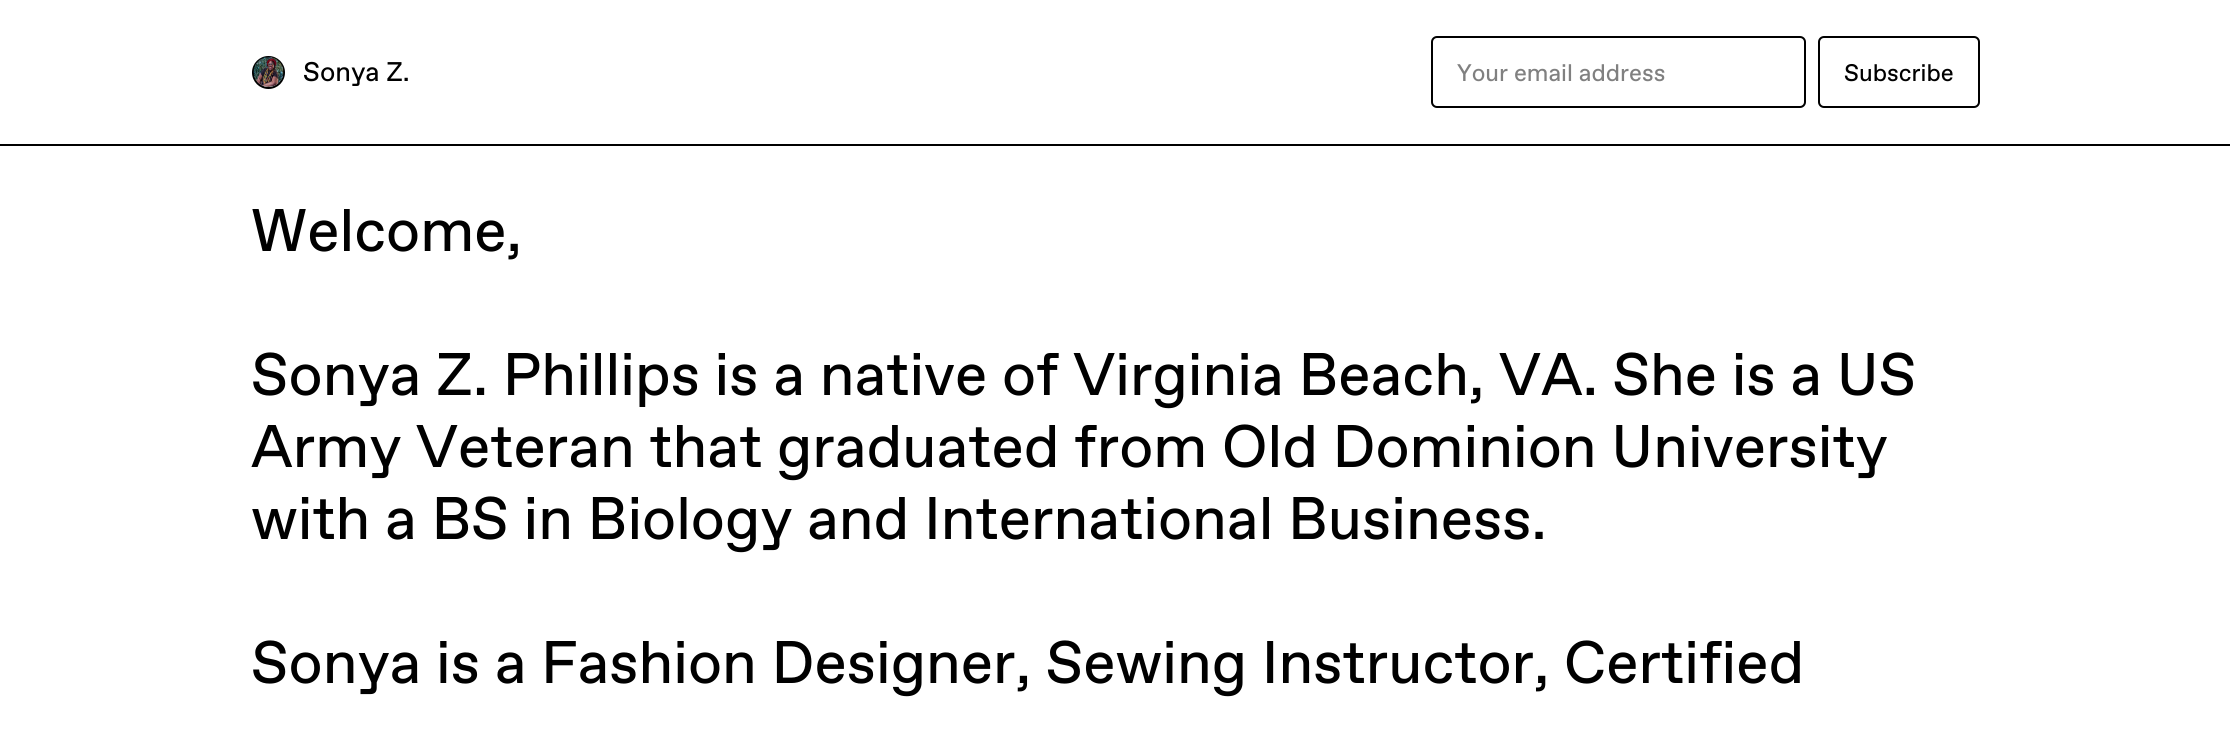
import math
import cairo


def round_path(ctx, x, y, w, h, r):
	ctx.new_sub_path()
	for i, (u, v) in enumerate([(x + w - r, y + h - r), (x + r, y + h - r), (x + r, y + r), (x + w - r, y + r)]):
		ctx.arc(u, v, r, i * math.pi / 2, (i + 1) * math.pi / 2)
	ctx.close_path()

def paste(ctx, path, x, y, w, h):
	ctx.save()
	ctx.set_source_surface(cairo.ImageSurface.create_from_png(path), x, y)
	ctx.rectangle(x, y, w, h)
	ctx.fill()
	ctx.restore()

def draw(ctx):
	ctx.set_source_rgb(1, 1, 1)
	ctx.paint()
	ctx.set_source_rgb(0, 0, 0)
	ctx.rectangle(0, 144, 2230, 2)
	ctx.fill()
	ctx.arc(268.5, 72.5, 15.5, 0, 2 * math.pi)
	ctx.stroke()
	paste(ctx, 'media/1.png', 253, 57, 31, 30)
	ctx.select_font_face('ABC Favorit')
	ctx.set_font_size(27)
	ctx.move_to(303, 81)
	ctx.show_text('Sonya Z.')
	round_path(ctx, 1432, 37, 373, 70, 5)
	ctx.stroke()
	ctx.set_font_size(24)
	ctx.set_source_rgb(0.502, 0.502, 0.502)
	ctx.move_to(1457, 81)
	ctx.show_text('Your email address')
	round_path(ctx, 1819, 37, 160, 70, 5)
	ctx.set_source_rgb(0, 0, 0)
	ctx.stroke()
	ctx.move_to(1844, 81)
	ctx.show_text('Subscribe')
	ctx.set_font_size(60)
	for x, y, s in [
		(251, 251, 'Welcome,'),
		(251, 395, 'Sonya Z. Phillips is a native of Virginia Beach, VA. She is a US'),
		(251, 467, 'Army Veteran that graduated from Old Dominion University'),
		(251, 539, 'with a BS in Biology and International Business.'),
		(251, 683, 'Sonya is a Fashion Designer, Sewing Instructor, Certified'),
	]:
		ctx.move_to(x, y)
		ctx.show_text(s)


surface = cairo.ImageSurface(cairo.FORMAT_RGB24, 2230, 729)
ctx = cairo.Context(surface)
options = cairo.FontOptions()
options.set_hint_metrics(cairo.HINT_METRICS_OFF)
options.set_hint_style(cairo.HINT_STYLE_NONE)
ctx.set_font_options(options)
ctx.set_miter_limit(4)
draw(ctx)
surface.write_to_png('image.png')
